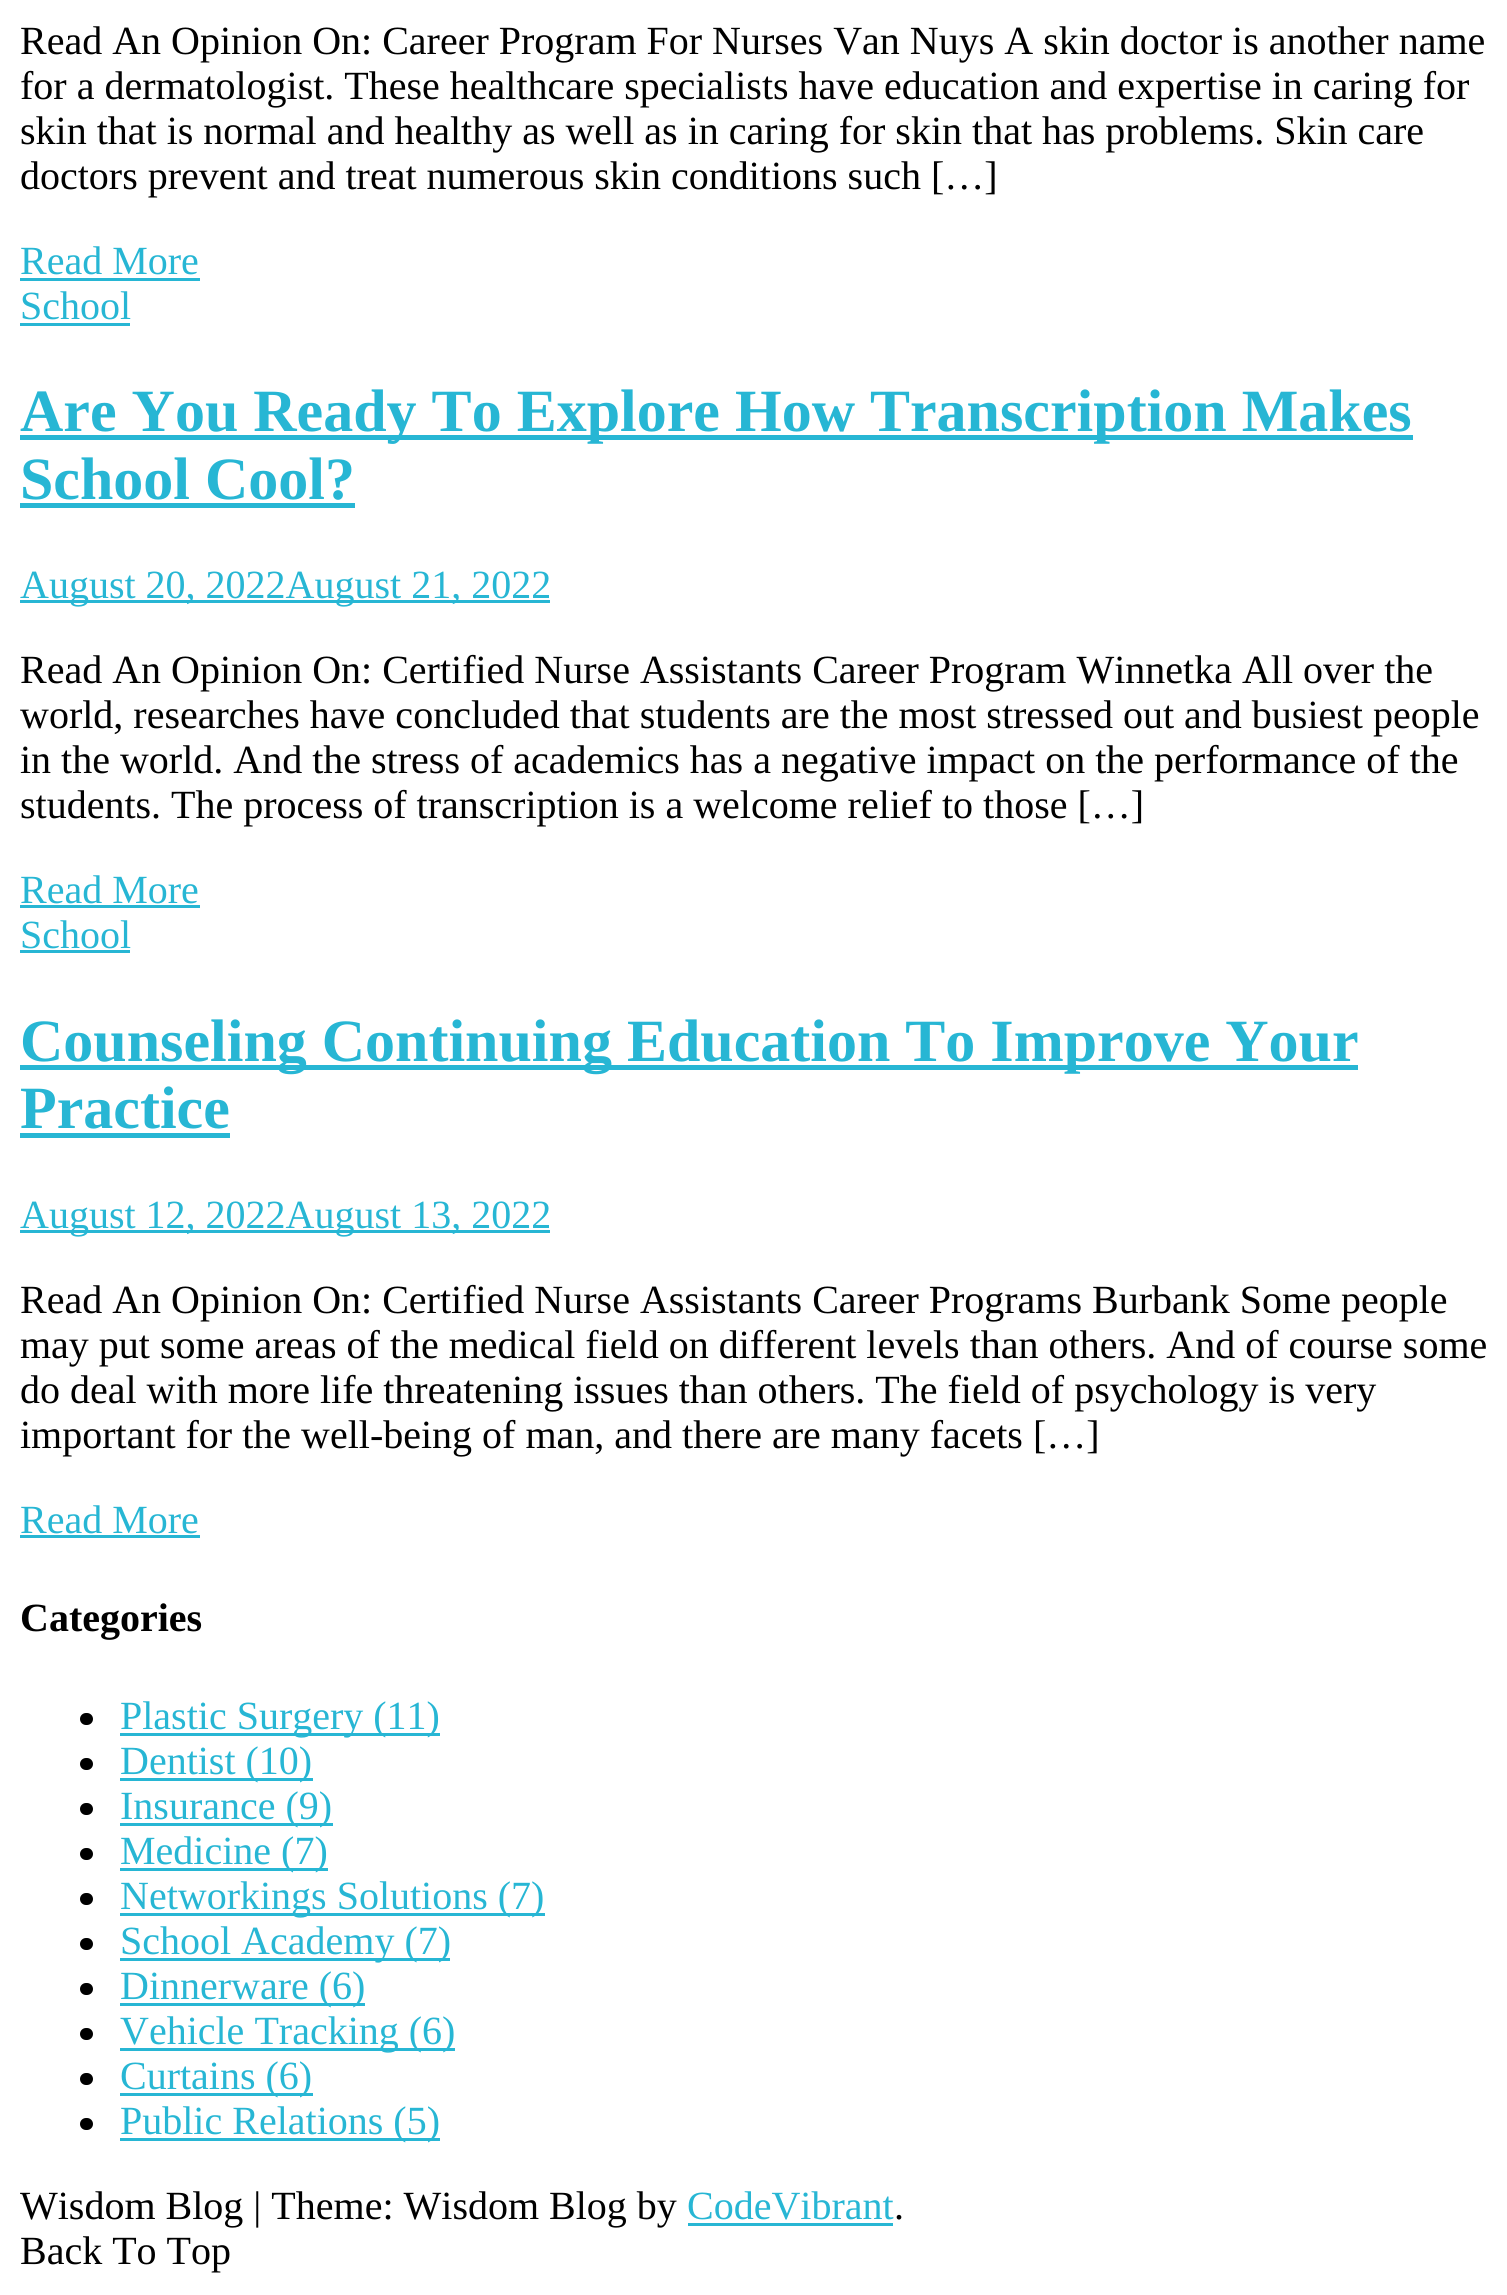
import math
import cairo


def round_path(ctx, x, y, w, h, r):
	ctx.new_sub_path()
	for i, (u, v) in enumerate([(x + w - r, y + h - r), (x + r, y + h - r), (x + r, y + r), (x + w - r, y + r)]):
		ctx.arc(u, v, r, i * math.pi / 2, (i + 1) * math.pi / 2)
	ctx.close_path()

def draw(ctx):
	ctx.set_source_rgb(1, 1, 1)
	ctx.paint()
	ctx.select_font_face('Liberation Serif')
	ctx.set_font_size(40)
	ctx.set_source_rgb(0, 0, 0)
	for x, y, s in [
		(20, 54, 'Read An Opinion On: Career Program For Nurses Van Nuys A skin doctor is another name'),
		(20, 99, 'for a dermatologist. These healthcare specialists have education and expertise in caring for'),
		(20, 144, 'skin that is normal and healthy as well as in caring for skin that has problems. Skin care'),
		(20, 189, 'doctors prevent and treat numerous skin conditions such […]'),
	]:
		ctx.move_to(x, y)
		ctx.show_text(s)
	ctx.set_source_rgb(0.153, 0.714, 0.831)
	ctx.move_to(20, 274)
	ctx.show_text('Read More')
	ctx.rectangle(20, 278, 180, 3)
	ctx.fill()
	ctx.move_to(20, 319)
	ctx.show_text('School')
	ctx.rectangle(20, 323, 110, 3)
	ctx.fill()
	ctx.rectangle(20, 435, 1393, 5)
	ctx.fill()
	ctx.select_font_face('Liberation Serif', cairo.FONT_SLANT_NORMAL, cairo.FONT_WEIGHT_BOLD)
	ctx.set_font_size(60)
	ctx.move_to(20, 431)
	ctx.show_text('Are You Ready To Explore How Transcription Makes')
	ctx.move_to(20, 499)
	ctx.show_text('School Cool?')
	ctx.rectangle(20, 503, 335, 5)
	ctx.fill()
	ctx.rectangle(20, 600, 530, 3)
	ctx.fill()
	ctx.select_font_face('Liberation Serif')
	ctx.set_font_size(40)
	ctx.move_to(20, 598)
	ctx.show_text('August 20, 2022August 21, 2022')
	ctx.set_source_rgb(0, 0, 0)
	for x, y, s in [
		(20, 683, 'Read An Opinion On: Certified Nurse Assistants Career Program Winnetka All over the'),
		(20, 728, 'world, researches have concluded that students are the most stressed out and busiest people'),
		(20, 773, 'in the world. And the stress of academics has a negative impact on the performance of the'),
		(20, 818, 'students. The process of transcription is a welcome relief to those […]'),
	]:
		ctx.move_to(x, y)
		ctx.show_text(s)
	ctx.set_source_rgb(0.153, 0.714, 0.831)
	ctx.move_to(20, 903)
	ctx.show_text('Read More')
	ctx.rectangle(20, 905, 180, 3)
	ctx.fill()
	ctx.move_to(20, 948)
	ctx.show_text('School')
	ctx.rectangle(20, 950, 110, 3)
	ctx.fill()
	ctx.rectangle(20, 1065, 1338, 5)
	ctx.fill()
	ctx.select_font_face('Liberation Serif', cairo.FONT_SLANT_NORMAL, cairo.FONT_WEIGHT_BOLD)
	ctx.set_font_size(60)
	ctx.move_to(20, 1061)
	ctx.show_text('Counseling Continuing Education To Improve Your')
	ctx.move_to(20, 1128)
	ctx.show_text('Practice')
	ctx.rectangle(20, 1133, 210, 5)
	ctx.fill()
	ctx.rectangle(20, 1230, 530, 3)
	ctx.fill()
	ctx.select_font_face('Liberation Serif')
	ctx.set_font_size(40)
	ctx.move_to(20, 1228)
	ctx.show_text('August 12, 2022August 13, 2022')
	ctx.set_source_rgb(0, 0, 0)
	for x, y, s in [
		(20, 1313, 'Read An Opinion On: Certified Nurse Assistants Career Programs Burbank Some people'),
		(20, 1358, 'may put some areas of the medical field on different levels than others. And of course some'),
		(20, 1403, 'do deal with more life threatening issues than others. The field of psychology is very'),
		(20, 1448, 'important for the well-being of man, and there are many facets […]'),
	]:
		ctx.move_to(x, y)
		ctx.show_text(s)
	ctx.set_source_rgb(0.153, 0.714, 0.831)
	ctx.move_to(20, 1533)
	ctx.show_text('Read More')
	ctx.rectangle(20, 1535, 180, 3)
	ctx.fill()
	ctx.select_font_face('Liberation Serif', cairo.FONT_SLANT_NORMAL, cairo.FONT_WEIGHT_BOLD)
	ctx.set_source_rgb(0, 0, 0)
	ctx.move_to(20, 1631)
	ctx.show_text('Categories')
	round_path(ctx, 80, 1713, 13, 12, 6)
	ctx.fill()
	ctx.set_source_rgb(0.153, 0.714, 0.831)
	ctx.rectangle(120, 1733, 320, 3)
	ctx.fill()
	ctx.select_font_face('Liberation Serif')
	ctx.move_to(120, 1729)
	ctx.show_text('Plastic Surgery (11)')
	ctx.set_source_rgb(0, 0, 0)
	round_path(ctx, 80, 1758, 13, 12, 6)
	ctx.fill()
	ctx.set_source_rgb(0.153, 0.714, 0.831)
	ctx.rectangle(120, 1778, 193, 3)
	ctx.fill()
	ctx.move_to(120, 1774)
	ctx.show_text('Dentist (10)')
	ctx.set_source_rgb(0, 0, 0)
	round_path(ctx, 80, 1803, 13, 12, 6)
	ctx.fill()
	ctx.set_source_rgb(0.153, 0.714, 0.831)
	ctx.rectangle(120, 1823, 213, 3)
	ctx.fill()
	ctx.move_to(120, 1819)
	ctx.show_text('Insurance (9)')
	ctx.set_source_rgb(0, 0, 0)
	round_path(ctx, 80, 1848, 13, 12, 6)
	ctx.fill()
	ctx.set_source_rgb(0.153, 0.714, 0.831)
	ctx.rectangle(120, 1868, 208, 3)
	ctx.fill()
	ctx.move_to(120, 1864)
	ctx.show_text('Medicine (7)')
	ctx.set_source_rgb(0, 0, 0)
	round_path(ctx, 80, 1893, 13, 12, 6)
	ctx.fill()
	ctx.set_source_rgb(0.153, 0.714, 0.831)
	ctx.rectangle(120, 1913, 425, 3)
	ctx.fill()
	ctx.move_to(120, 1909)
	ctx.show_text('Networkings Solutions (7)')
	ctx.set_source_rgb(0, 0, 0)
	round_path(ctx, 80, 1938, 13, 12, 6)
	ctx.fill()
	ctx.set_source_rgb(0.153, 0.714, 0.831)
	ctx.rectangle(120, 1958, 330, 3)
	ctx.fill()
	ctx.move_to(120, 1954)
	ctx.show_text('School Academy (7)')
	ctx.set_source_rgb(0, 0, 0)
	round_path(ctx, 80, 1983, 13, 12, 6)
	ctx.fill()
	ctx.set_source_rgb(0.153, 0.714, 0.831)
	ctx.rectangle(120, 2003, 245, 3)
	ctx.fill()
	ctx.move_to(120, 1999)
	ctx.show_text('Dinnerware (6)')
	ctx.set_source_rgb(0, 0, 0)
	round_path(ctx, 80, 2028, 13, 12, 6)
	ctx.fill()
	ctx.set_source_rgb(0.153, 0.714, 0.831)
	ctx.rectangle(120, 2048, 335, 3)
	ctx.fill()
	ctx.move_to(120, 2044)
	ctx.show_text('Vehicle Tracking (6)')
	ctx.set_source_rgb(0, 0, 0)
	round_path(ctx, 80, 2073, 13, 12, 6)
	ctx.fill()
	ctx.set_source_rgb(0.153, 0.714, 0.831)
	ctx.rectangle(120, 2093, 193, 3)
	ctx.fill()
	ctx.move_to(120, 2089)
	ctx.show_text('Curtains (6)')
	ctx.set_source_rgb(0, 0, 0)
	round_path(ctx, 80, 2118, 13, 12, 6)
	ctx.fill()
	ctx.set_source_rgb(0.153, 0.714, 0.831)
	ctx.rectangle(120, 2138, 320, 3)
	ctx.fill()
	ctx.move_to(120, 2134)
	ctx.show_text('Public Relations (5)')
	ctx.set_source_rgb(0, 0, 0)
	ctx.move_to(20, 2219)
	ctx.show_text('Wisdom Blog | Theme: Wisdom Blog by')
	ctx.set_source_rgb(0.153, 0.714, 0.831)
	ctx.move_to(687, 2219)
	ctx.show_text('CodeVibrant')
	ctx.rectangle(688, 2223, 205, 3)
	ctx.fill()
	ctx.set_source_rgb(0, 0, 0)
	ctx.move_to(894, 2219)
	ctx.show_text('.')
	ctx.move_to(20, 2264)
	ctx.show_text('Back To Top')


surface = cairo.ImageSurface(cairo.FORMAT_RGB24, 1507, 2295)
ctx = cairo.Context(surface)
options = cairo.FontOptions()
options.set_hint_metrics(cairo.HINT_METRICS_OFF)
options.set_hint_style(cairo.HINT_STYLE_NONE)
ctx.set_font_options(options)
ctx.set_miter_limit(4)
draw(ctx)
surface.write_to_png('image.png')
